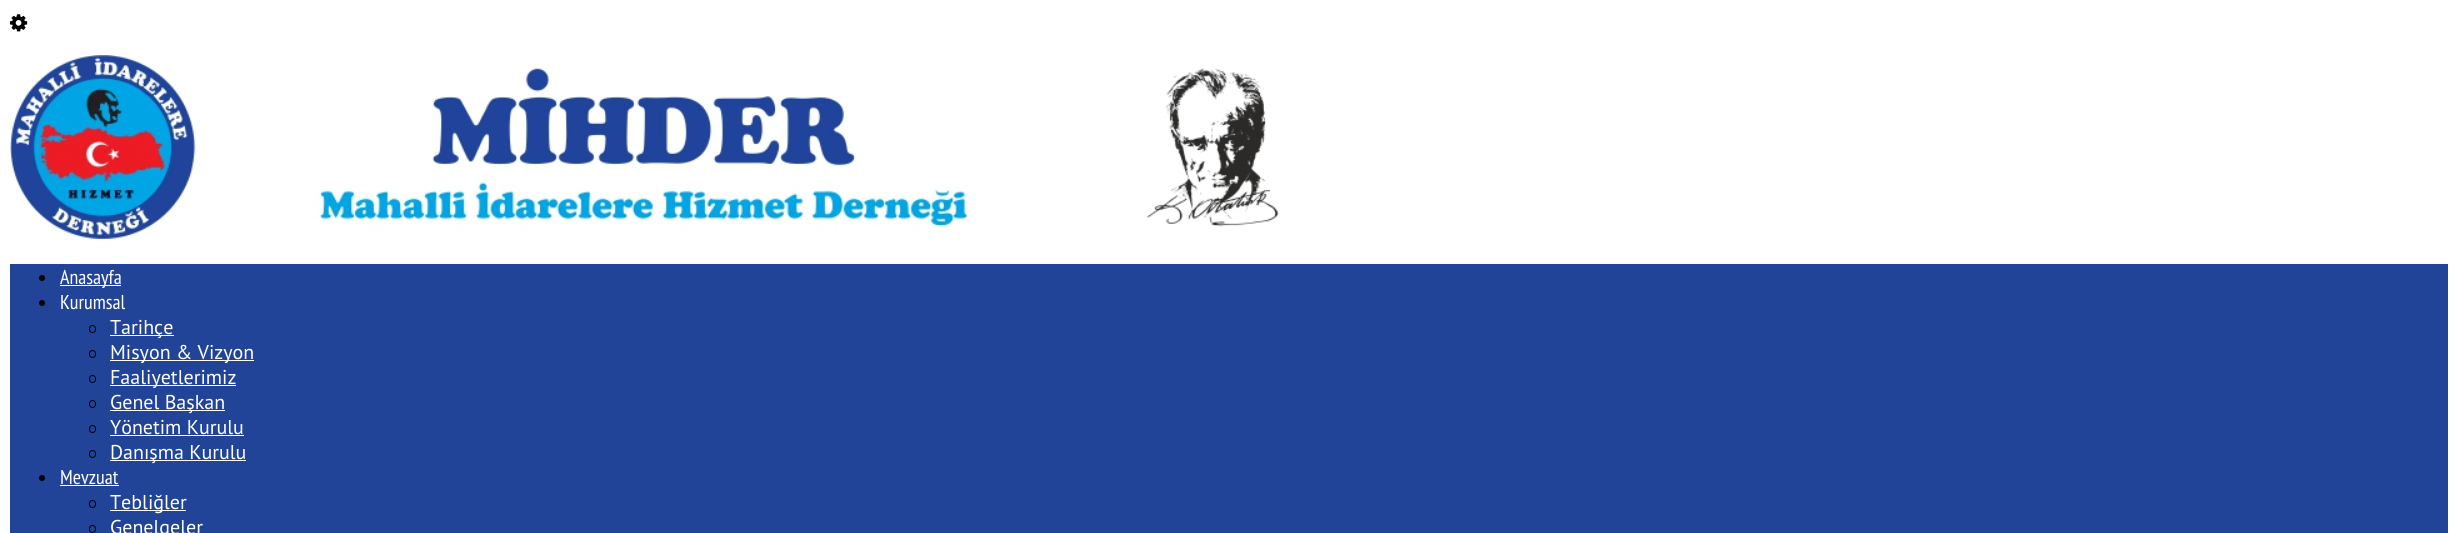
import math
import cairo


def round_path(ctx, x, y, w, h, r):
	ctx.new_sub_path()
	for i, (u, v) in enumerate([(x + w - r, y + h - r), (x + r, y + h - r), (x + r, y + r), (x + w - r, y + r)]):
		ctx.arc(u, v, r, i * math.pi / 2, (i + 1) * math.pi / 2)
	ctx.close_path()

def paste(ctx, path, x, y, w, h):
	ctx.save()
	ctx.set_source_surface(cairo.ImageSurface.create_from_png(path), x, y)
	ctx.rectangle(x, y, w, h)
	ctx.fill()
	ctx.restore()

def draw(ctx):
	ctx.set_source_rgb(1, 1, 1)
	ctx.paint()
	paste(ctx, 'media/1.png', 10, 14, 18, 18)
	paste(ctx, 'media/2.png', 10, 55, 1269, 184)
	ctx.set_source_rgb(0.129, 0.267, 0.596)
	ctx.rectangle(10, 264, 2438, 269)
	ctx.fill()
	ctx.set_source_rgb(0, 0, 0)
	ctx.arc(42, 278, 3, 0, 2 * math.pi)
	ctx.fill()
	ctx.set_source_rgb(1, 1, 1)
	ctx.rectangle(60, 285, 61, 1)
	ctx.fill()
	ctx.select_font_face('PT Sans Narrow')
	ctx.set_font_size(20)
	ctx.move_to(60, 284)
	ctx.show_text('Anasayfa')
	ctx.set_source_rgb(0, 0, 0)
	ctx.new_path()
	ctx.arc(42, 303, 3, 0, 2 * math.pi)
	ctx.fill()
	ctx.set_source_rgb(1, 1, 1)
	ctx.move_to(60, 309)
	ctx.show_text('Kurumsal')
	round_path(ctx, 89.5, 325.5, 6, 7, 3)
	ctx.set_source_rgb(0, 0, 0)
	ctx.set_line_width(1)
	ctx.stroke()
	ctx.set_source_rgb(1, 1, 1)
	ctx.rectangle(110, 335, 64, 1)
	ctx.fill()
	ctx.select_font_face('PT Sans')
	ctx.move_to(110, 334)
	ctx.show_text('Tarihçe')
	round_path(ctx, 89.5, 350.5, 6, 7, 3)
	ctx.set_source_rgb(0, 0, 0)
	ctx.stroke()
	ctx.set_source_rgb(1, 1, 1)
	ctx.rectangle(110, 360, 144, 1)
	ctx.fill()
	ctx.move_to(110, 359)
	ctx.show_text('Misyon & Vizyon')
	round_path(ctx, 89.5, 375.5, 6, 7, 3)
	ctx.set_source_rgb(0, 0, 0)
	ctx.stroke()
	ctx.set_source_rgb(1, 1, 1)
	ctx.rectangle(110, 385, 126, 1)
	ctx.fill()
	ctx.move_to(110, 384)
	ctx.show_text('Faaliyetlerimiz')
	round_path(ctx, 89.5, 400.5, 6, 7, 3)
	ctx.set_source_rgb(0, 0, 0)
	ctx.stroke()
	ctx.set_source_rgb(1, 1, 1)
	ctx.rectangle(110, 410, 115, 1)
	ctx.fill()
	ctx.move_to(110, 409)
	ctx.show_text('Genel Başkan')
	round_path(ctx, 89.5, 425.5, 6, 7, 3)
	ctx.set_source_rgb(0, 0, 0)
	ctx.stroke()
	ctx.set_source_rgb(1, 1, 1)
	ctx.move_to(110, 434)
	ctx.show_text('Yönetim Kurulu')
	ctx.rectangle(110, 435, 134, 1)
	ctx.fill()
	round_path(ctx, 89.5, 450.5, 6, 7, 3)
	ctx.set_source_rgb(0, 0, 0)
	ctx.stroke()
	ctx.set_source_rgb(1, 1, 1)
	ctx.rectangle(110, 460, 136, 1)
	ctx.fill()
	ctx.move_to(110, 459)
	ctx.show_text('Danışma Kurulu')
	ctx.set_source_rgb(0, 0, 0)
	ctx.new_path()
	ctx.arc(42, 478, 3, 0, 2 * math.pi)
	ctx.fill()
	ctx.select_font_face('PT Sans Narrow')
	ctx.set_source_rgb(1, 1, 1)
	ctx.move_to(60, 484)
	ctx.show_text('Mevzuat')
	ctx.rectangle(60, 485, 59, 1)
	ctx.fill()
	round_path(ctx, 89.5, 500.5, 6, 7, 3)
	ctx.set_source_rgb(0, 0, 0)
	ctx.stroke()
	ctx.set_source_rgb(1, 1, 1)
	ctx.rectangle(110, 510, 76, 1)
	ctx.fill()
	ctx.select_font_face('PT Sans')
	ctx.move_to(110, 509)
	ctx.show_text('Tebliğler')
	round_path(ctx, 89.5, 525.5, 6, 7, 3)
	ctx.set_source_rgb(0, 0, 0)
	ctx.stroke()
	ctx.set_source_rgb(1, 1, 1)
	ctx.move_to(110, 534)
	ctx.show_text('Genelgeler')


surface = cairo.ImageSurface(cairo.FORMAT_RGB24, 2457, 533)
ctx = cairo.Context(surface)
options = cairo.FontOptions()
options.set_hint_metrics(cairo.HINT_METRICS_OFF)
options.set_hint_style(cairo.HINT_STYLE_NONE)
ctx.set_font_options(options)
ctx.set_miter_limit(4)
draw(ctx)
surface.write_to_png('image.png')
